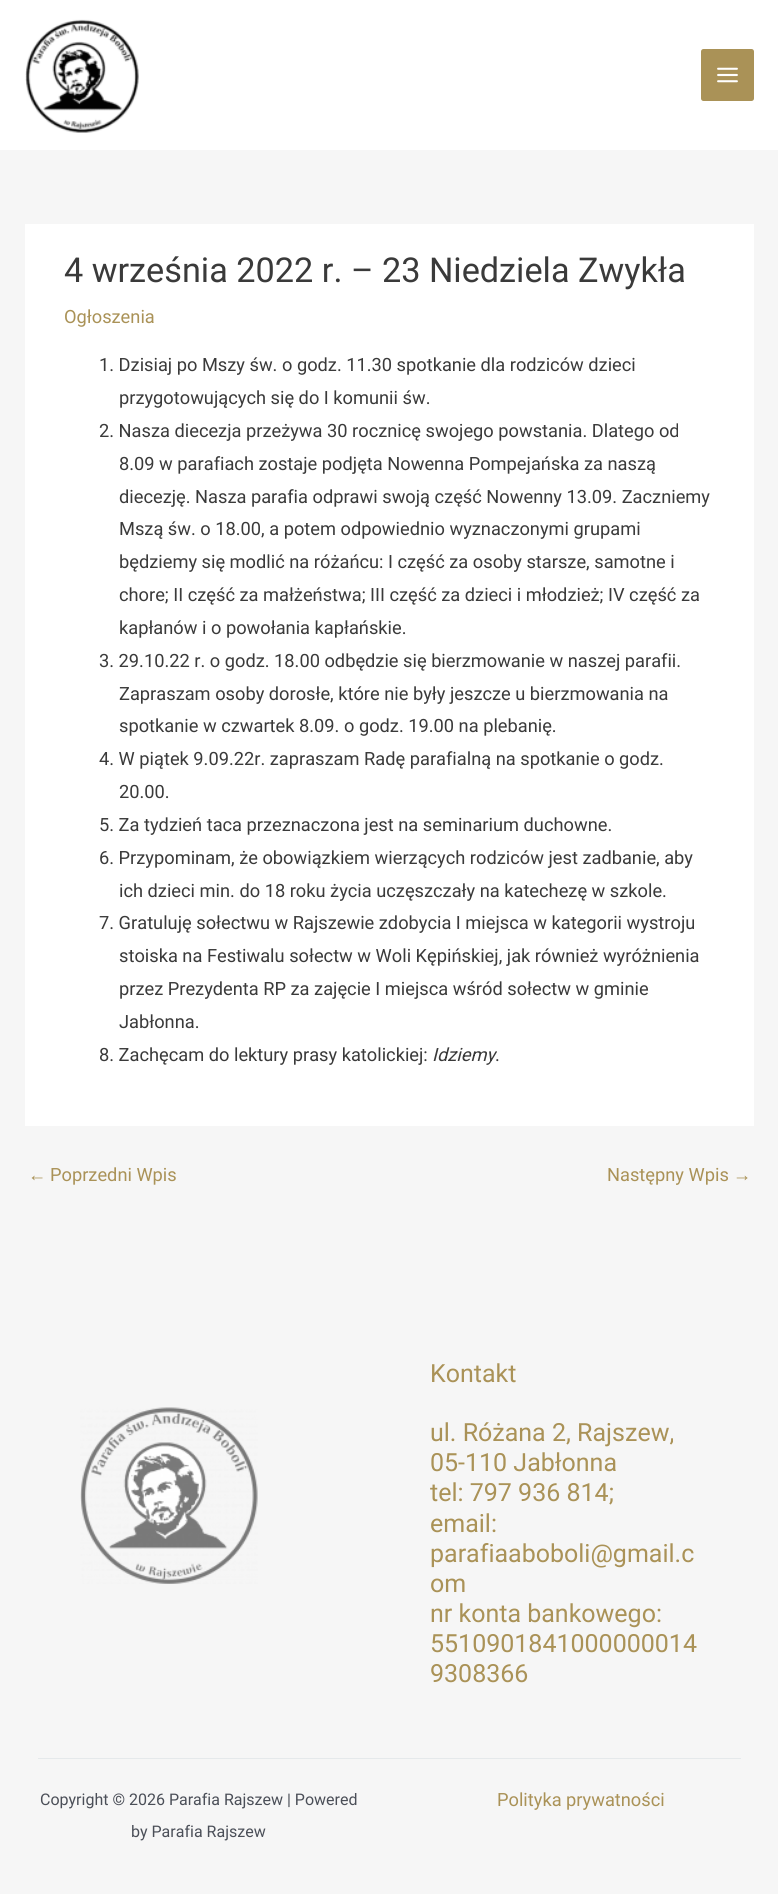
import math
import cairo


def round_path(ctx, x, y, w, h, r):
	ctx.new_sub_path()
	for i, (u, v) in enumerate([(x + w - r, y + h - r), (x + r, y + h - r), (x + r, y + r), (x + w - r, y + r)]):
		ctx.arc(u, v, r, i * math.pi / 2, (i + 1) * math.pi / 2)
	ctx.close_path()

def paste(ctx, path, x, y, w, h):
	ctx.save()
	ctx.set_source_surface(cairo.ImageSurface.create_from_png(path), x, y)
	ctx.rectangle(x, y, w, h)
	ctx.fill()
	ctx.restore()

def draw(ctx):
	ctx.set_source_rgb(0.961, 0.961, 0.961)
	ctx.paint()
	ctx.set_source_rgb(1, 1, 1)
	ctx.rectangle(0, 0, 778, 150)
	ctx.fill()
	paste(ctx, 'media/1.png', 25, 19, 114, 114)
	ctx.set_source_rgb(0.667, 0.573, 0.341)
	round_path(ctx, 701, 49, 53, 52, 2.5)
	ctx.fill()
	paste(ctx, 'media/2.png', 717, 67, 21, 16)
	ctx.set_source_rgb(1, 1, 1)
	ctx.rectangle(25, 224, 729, 902)
	ctx.fill()
	ctx.select_font_face('Roboto')
	ctx.set_font_size(34.25)
	ctx.set_source_rgb(0.227, 0.227, 0.227)
	ctx.move_to(64, 282)
	ctx.show_text('4 września 2022 r. – 23 Niedziela Zwykła')
	ctx.set_font_size(18.25)
	ctx.set_source_rgb(0.667, 0.573, 0.341)
	ctx.move_to(64, 323)
	ctx.show_text('Ogłoszenia')
	ctx.set_source_rgb(0.227, 0.227, 0.227)
	for x, y, s in [
		(99, 371, '1. Dzisiaj po Mszy św. o godz. 11.30 spotkanie dla rodziców dzieci'),
		(119, 404, 'przygotowujących się do I komunii św.'),
		(99, 437, '2. Nasza diecezja przeżywa 30 rocznicę swojego powstania. Dlatego od'),
		(119, 470, '8.09 w parafiach zostaje podjęta Nowenna Pompejańska za naszą'),
		(119, 503, 'diecezję. Nasza parafia odprawi swoją część Nowenny 13.09. Zaczniemy'),
		(119, 535, 'Mszą św. o 18.00, a potem odpowiednio wyznaczonymi grupami'),
		(119, 568, 'będziemy się modlić na różańcu: I część za osoby starsze, samotne i'),
		(119, 601, 'chore; II część za małżeństwa; III część za dzieci i młodzież; IV część za'),
		(119, 634, 'kapłanów i o powołania kapłańskie.'),
		(99, 667, '3. 29.10.22 r. o godz. 18.00 odbędzie się bierzmowanie w naszej parafii.'),
		(119, 700, 'Zapraszam osoby dorosłe, które nie były jeszcze u bierzmowania na'),
		(119, 732, 'spotkanie w czwartek 8.09. o godz. 19.00 na plebanię.'),
		(99, 765, '4. W piątek 9.09.22r. zapraszam Radę parafialną na spotkanie o godz.'),
		(119, 798, '20.00.'),
		(99, 831, '5. Za tydzień taca przeznaczona jest na seminarium duchowne.'),
		(99, 864, '6. Przypominam, że obowiązkiem wierzących rodziców jest zadbanie, aby'),
		(119, 897, 'ich dzieci min. do 18 roku życia uczęszczały na katechezę w szkole.'),
		(99, 929, '7. Gratuluję sołectwu w Rajszewie zdobycia I miejsca w kategorii wystroju'),
		(119, 962, 'stoiska na Festiwalu sołectw w Woli Kępińskiej, jak również wyróżnienia'),
		(119, 995, 'przez Prezydenta RP za zajęcie I miejsca wśród sołectw w gminie'),
		(119, 1028, 'Jabłonna.'),
		(99, 1061, '8. Zachęcam do lektury prasy katolickiej:'),
	]:
		ctx.move_to(x, y)
		ctx.show_text(s)
	ctx.select_font_face('Roboto', cairo.FONT_SLANT_ITALIC)
	ctx.move_to(432, 1061)
	ctx.show_text('Idziemy')
	ctx.select_font_face('Roboto')
	ctx.move_to(495, 1061)
	ctx.show_text('.')
	ctx.select_font_face('Liberation Sans')
	ctx.set_source_rgb(0.667, 0.573, 0.341)
	ctx.move_to(28, 1181)
	ctx.show_text('←')
	ctx.select_font_face('Roboto')
	ctx.move_to(50, 1181)
	ctx.show_text('Poprzedni Wpis')
	ctx.move_to(607, 1181)
	ctx.show_text('Następny Wpis')
	ctx.select_font_face('Liberation Sans')
	ctx.move_to(733, 1181)
	ctx.show_text('→')
	paste(ctx, 'media/3.png', 80, 1407, 178, 177)
	ctx.select_font_face('Roboto')
	ctx.set_font_size(25)
	for x, y, s in [
		(430, 1382, 'Kontakt'),
		(430, 1441, 'ul. Różana 2, Rajszew,'),
		(430, 1471, '05-110 Jabłonna'),
		(430, 1501, 'tel: 797 936 814;'),
		(430, 1532, 'email:'),
		(430, 1562, 'parafiaaboboli@gmail.c'),
		(430, 1592, 'om'),
		(430, 1622, 'nr konta bankowego:'),
		(430, 1652, '5510901841000000014'),
		(430, 1682, '9308366'),
	]:
		ctx.move_to(x, y)
		ctx.show_text(s)
	ctx.set_source_rgb(0.898, 0.914, 0.918)
	ctx.rectangle(38, 1758, 703, 1)
	ctx.fill()
	ctx.set_font_size(16)
	ctx.set_source_rgb(0.294, 0.31, 0.345)
	ctx.move_to(40, 1805)
	ctx.show_text('Copyright © 2026 Parafia Rajszew | Powered')
	ctx.move_to(131, 1837)
	ctx.show_text('by Parafia Rajszew')
	ctx.set_font_size(18.25)
	ctx.set_source_rgb(0.667, 0.573, 0.341)
	ctx.move_to(497, 1806)
	ctx.show_text('Polityka prywatności')


surface = cairo.ImageSurface(cairo.FORMAT_RGB24, 778, 1894)
ctx = cairo.Context(surface)
options = cairo.FontOptions()
options.set_hint_metrics(cairo.HINT_METRICS_OFF)
options.set_hint_style(cairo.HINT_STYLE_NONE)
ctx.set_font_options(options)
ctx.set_miter_limit(4)
draw(ctx)
surface.write_to_png('image.png')
